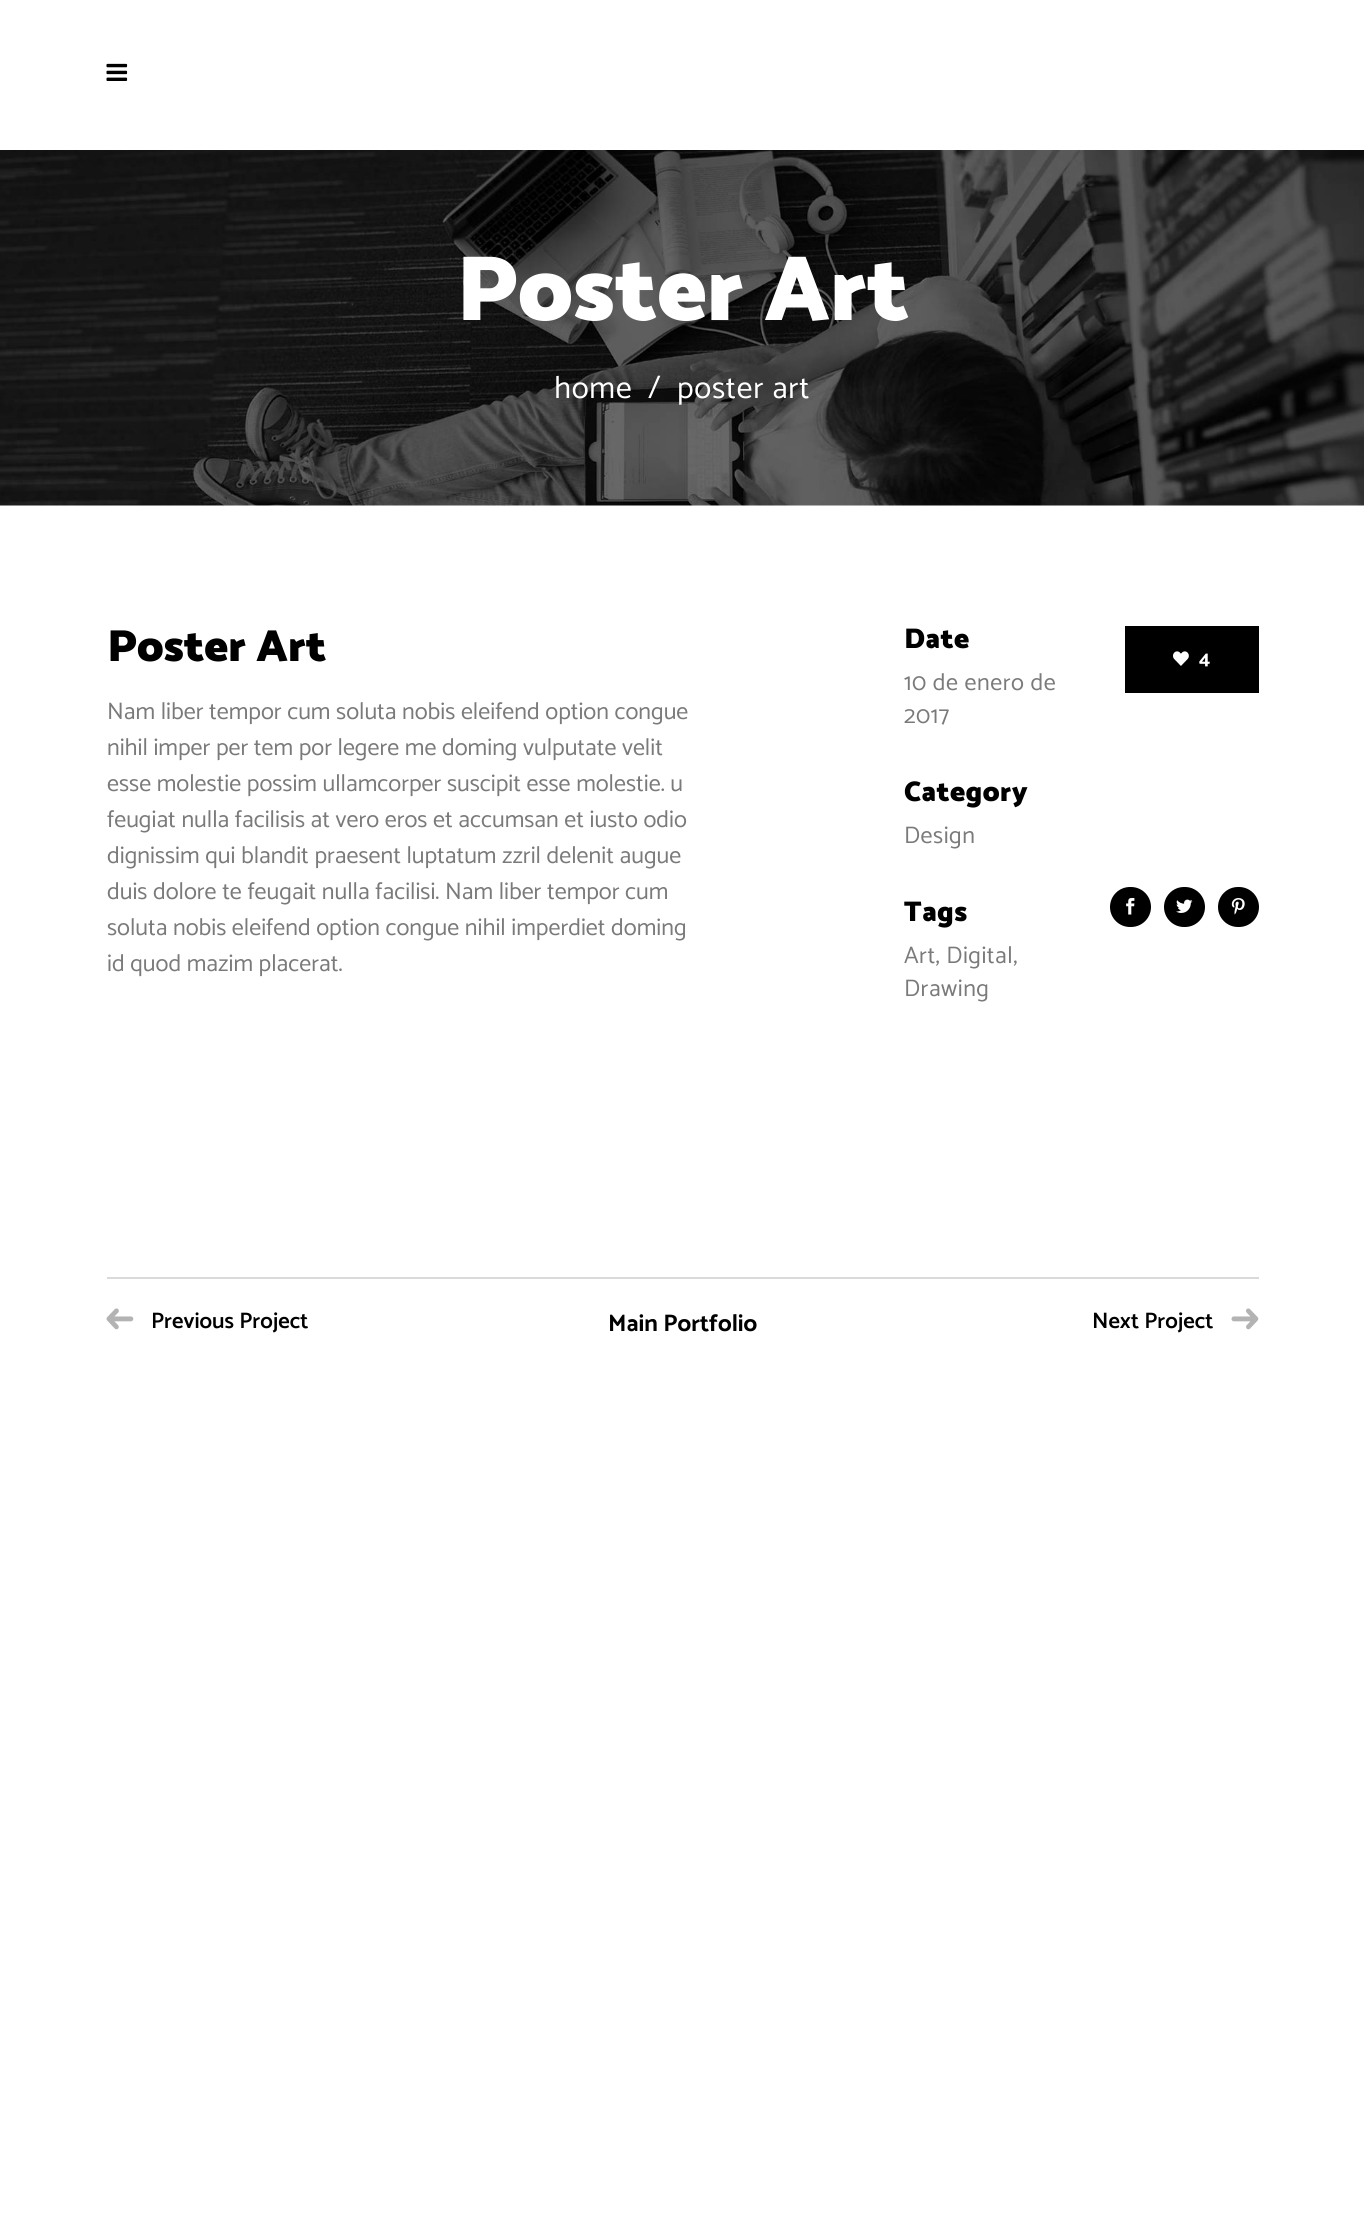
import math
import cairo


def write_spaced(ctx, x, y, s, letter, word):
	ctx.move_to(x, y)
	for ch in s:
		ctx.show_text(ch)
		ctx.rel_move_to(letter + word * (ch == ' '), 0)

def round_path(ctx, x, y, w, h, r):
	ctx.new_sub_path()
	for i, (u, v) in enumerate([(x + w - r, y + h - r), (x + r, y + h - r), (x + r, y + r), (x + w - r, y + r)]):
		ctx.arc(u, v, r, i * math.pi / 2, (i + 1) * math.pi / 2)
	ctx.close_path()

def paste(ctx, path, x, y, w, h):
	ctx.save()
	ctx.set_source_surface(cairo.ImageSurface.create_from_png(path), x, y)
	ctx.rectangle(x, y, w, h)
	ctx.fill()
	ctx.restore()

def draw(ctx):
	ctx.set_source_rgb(1, 1, 1)
	ctx.paint()
	paste(ctx, 'media/1.png', 106, 63, 22, 18)
	paste(ctx, 'media/2.png', 0, 150, 1364, 356)
	ctx.select_font_face('Catamaran Black')
	ctx.set_font_size(93)
	ctx.set_source_rgb(1, 1, 1)
	ctx.move_to(456, 320)
	ctx.show_text('Poster Art')
	ctx.select_font_face('Catamaran')
	ctx.set_font_size(31.5)
	for x, y, s in [
		(554, 398, 'home'),
		(648, 398, '/'),
		(677, 398, 'poster art'),
	]:
		write_spaced(ctx, x, y, s, 0.75, 0)
	ctx.select_font_face('Catamaran Black')
	ctx.set_font_size(45)
	ctx.set_source_rgb(0, 0, 0)
	ctx.move_to(107, 661)
	ctx.show_text('Poster Art')
	ctx.select_font_face('Catamaran')
	ctx.set_font_size(24)
	ctx.set_source_rgb(0.478, 0.478, 0.478)
	for x, y, s in [
		(107, 719, 'Nam liber tempor cum soluta nobis eleifend option congue'),
		(107, 755, 'nihil imper per tem por legere me doming vulputate velit'),
		(107, 791, 'esse molestie possim ullamcorper suscipit esse molestie. u'),
		(107, 827, 'feugiat nulla facilisis at vero eros et accumsan et iusto odio'),
		(107, 863, 'dignissim qui blandit praesent luptatum zzril delenit augue'),
		(107, 899, 'duis dolore te feugait nulla facilisi. Nam liber tempor cum'),
		(107, 935, 'soluta nobis eleifend option congue nihil imperdiet doming'),
		(107, 971, 'id quod mazim placerat.'),
	]:
		ctx.move_to(x, y)
		ctx.show_text(s)
	ctx.select_font_face('Catamaran Black')
	ctx.set_font_size(28.5)
	ctx.set_source_rgb(0, 0, 0)
	write_spaced(ctx, 904, 648, 'Date', 0.5, 0)
	ctx.select_font_face('Catamaran')
	ctx.set_font_size(24)
	ctx.set_source_rgb(0.478, 0.478, 0.478)
	write_spaced(ctx, 904, 690, '10 de enero de', 0.5, 0)
	write_spaced(ctx, 904, 723, '2017', 0.5, 0)
	ctx.select_font_face('Catamaran Black')
	ctx.set_font_size(28.5)
	ctx.set_source_rgb(0, 0, 0)
	write_spaced(ctx, 904, 801, 'Category', 0.5, 0)
	ctx.select_font_face('Catamaran')
	ctx.set_font_size(24)
	ctx.set_source_rgb(0.478, 0.478, 0.478)
	write_spaced(ctx, 904, 843, 'Design', 0.5, 0)
	ctx.select_font_face('Catamaran Black')
	ctx.set_font_size(28.5)
	ctx.set_source_rgb(0, 0, 0)
	write_spaced(ctx, 904, 921, 'Tags', 0.5, 0)
	ctx.select_font_face('Catamaran')
	ctx.set_font_size(24)
	ctx.set_source_rgb(0.478, 0.478, 0.478)
	write_spaced(ctx, 904, 963, 'Art, Digital,', 0.5, 0)
	write_spaced(ctx, 904, 996, 'Drawing', 0.5, 0)
	ctx.set_source_rgb(0, 0, 0)
	ctx.rectangle(1125, 626, 134, 67)
	ctx.fill()
	paste(ctx, 'media/3.png', 1173, 651, 16, 15)
	ctx.select_font_face('Catamaran', cairo.FONT_SLANT_NORMAL, cairo.FONT_WEIGHT_BOLD)
	ctx.set_font_size(20)
	ctx.set_source_rgb(1, 1, 1)
	ctx.move_to(1199, 665)
	ctx.show_text('4')
	ctx.set_source_rgb(0, 0, 0)
	round_path(ctx, 1110, 887, 41, 40, 20)
	ctx.fill()
	paste(ctx, 'media/4.png', 1126, 898, 9, 17)
	round_path(ctx, 1164, 887, 41, 40, 20)
	ctx.fill()
	paste(ctx, 'media/5.png', 1176, 899, 17, 14)
	round_path(ctx, 1218, 887, 41, 40, 20)
	ctx.fill()
	paste(ctx, 'media/6.png', 1231, 898, 14, 17)
	ctx.set_source_rgb(0.855, 0.855, 0.855)
	ctx.rectangle(107, 1277, 1152, 2)
	ctx.fill()
	paste(ctx, 'media/7.png', 106, 1308, 28, 22)
	ctx.select_font_face('Catamaran SemiBold')
	ctx.set_font_size(22.5)
	ctx.set_source_rgb(0, 0, 0)
	ctx.move_to(151, 1328)
	ctx.show_text('Previous Project')
	ctx.select_font_face('Catamaran', cairo.FONT_SLANT_NORMAL, cairo.FONT_WEIGHT_BOLD)
	ctx.set_font_size(24)
	ctx.move_to(608, 1331)
	ctx.show_text('Main Portfolio')
	ctx.select_font_face('Catamaran SemiBold')
	ctx.set_font_size(22.5)
	ctx.move_to(1092, 1328)
	ctx.show_text('Next Project')
	paste(ctx, 'media/8.png', 1231, 1308, 28, 22)


surface = cairo.ImageSurface(cairo.FORMAT_RGB24, 1364, 2215)
ctx = cairo.Context(surface)
options = cairo.FontOptions()
options.set_hint_metrics(cairo.HINT_METRICS_OFF)
options.set_hint_style(cairo.HINT_STYLE_NONE)
ctx.set_font_options(options)
ctx.set_miter_limit(4)
draw(ctx)
surface.write_to_png('image.png')
